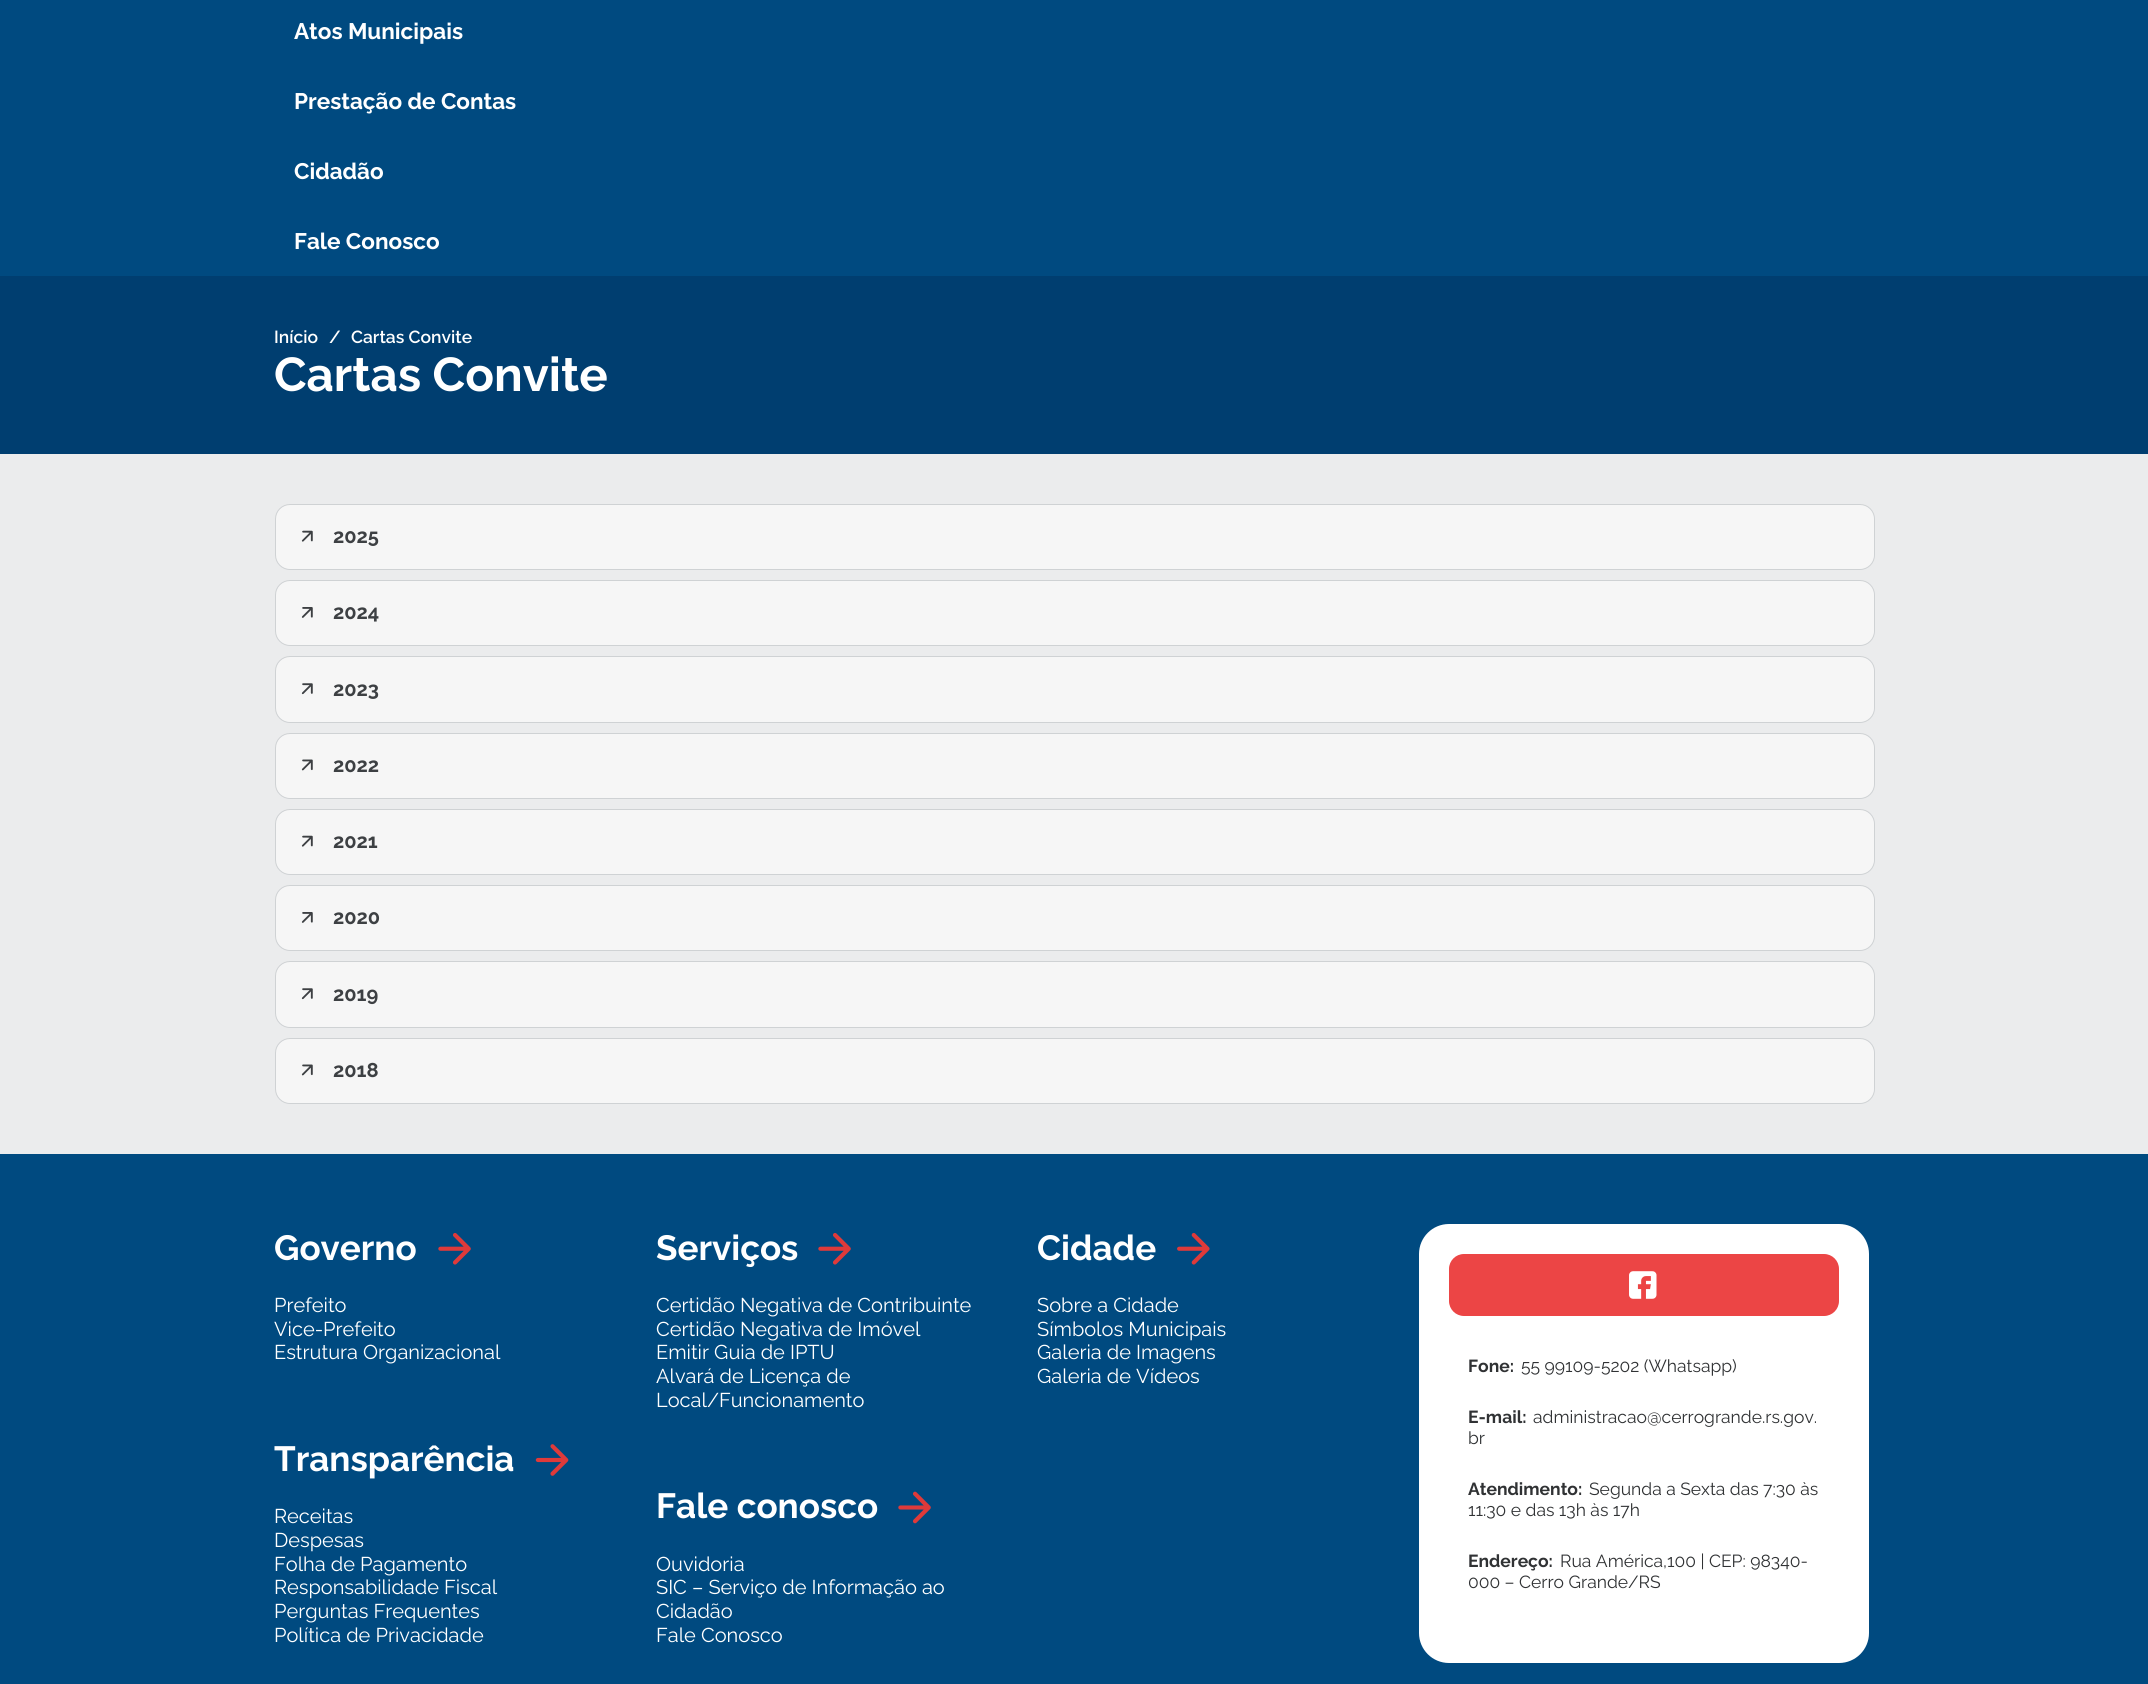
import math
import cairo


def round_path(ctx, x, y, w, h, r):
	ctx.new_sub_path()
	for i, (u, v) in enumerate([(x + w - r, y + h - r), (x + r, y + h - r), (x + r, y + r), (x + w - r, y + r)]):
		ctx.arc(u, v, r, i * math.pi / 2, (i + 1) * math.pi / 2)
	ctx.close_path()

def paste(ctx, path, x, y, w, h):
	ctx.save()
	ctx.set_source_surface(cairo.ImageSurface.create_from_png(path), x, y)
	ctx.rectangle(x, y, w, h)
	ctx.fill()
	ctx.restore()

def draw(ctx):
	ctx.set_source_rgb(0.918, 0.922, 0.929)
	ctx.paint()
	ctx.set_source_rgb(0, 0.29, 0.502)
	ctx.rectangle(0, 0, 2148, 276)
	ctx.fill()
	ctx.select_font_face('Raleway', cairo.FONT_SLANT_NORMAL, cairo.FONT_WEIGHT_BOLD)
	ctx.set_font_size(22.5)
	ctx.set_source_rgb(1, 1, 1)
	for x, y, s in [
		(294, 39, 'Atos Municipais'),
		(294, 109, 'Prestação de Contas'),
		(294, 179, 'Cidadão'),
		(294, 249, 'Fale Conosco'),
	]:
		ctx.move_to(x, y)
		ctx.show_text(s)
	ctx.set_source_rgb(0, 0.243, 0.439)
	ctx.rectangle(0, 276, 2148, 178)
	ctx.fill()
	ctx.select_font_face('Raleway SemiBold')
	ctx.set_font_size(17.5)
	ctx.set_source_rgb(1, 1, 1)
	for x, y, s in [
		(274, 343, 'Início'),
		(329, 343, '/'),
		(351, 343, 'Cartas Convite'),
	]:
		ctx.move_to(x, y)
		ctx.show_text(s)
	ctx.select_font_face('Raleway', cairo.FONT_SLANT_NORMAL, cairo.FONT_WEIGHT_BOLD)
	ctx.set_font_size(47.5)
	ctx.move_to(274, 391)
	ctx.show_text('Cartas Convite')
	ctx.set_source_rgb(0.961, 0.961, 0.961)
	round_path(ctx, 275.5, 504.5, 1599, 65, 14.5)
	ctx.fill_preserve()
	ctx.set_source_rgb(0.812, 0.824, 0.831)
	ctx.set_line_width(1)
	ctx.stroke()
	paste(ctx, 'media/1.png', 301, 530, 12, 12)
	ctx.set_font_size(20)
	ctx.set_source_rgb(0.239, 0.251, 0.263)
	ctx.move_to(333, 543)
	ctx.show_text('2025')
	ctx.set_source_rgb(0.961, 0.961, 0.961)
	round_path(ctx, 275.5, 580.5, 1599, 65, 14.5)
	ctx.fill_preserve()
	ctx.set_source_rgb(0.812, 0.824, 0.831)
	ctx.stroke()
	paste(ctx, 'media/2.png', 301, 607, 12, 11)
	ctx.set_source_rgb(0.239, 0.251, 0.263)
	ctx.move_to(333, 619)
	ctx.show_text('2024')
	ctx.set_source_rgb(0.961, 0.961, 0.961)
	round_path(ctx, 275.5, 656.5, 1599, 66, 14.5)
	ctx.fill_preserve()
	ctx.set_source_rgb(0.812, 0.824, 0.831)
	ctx.stroke()
	paste(ctx, 'media/3.png', 301, 683, 12, 12)
	ctx.set_source_rgb(0.239, 0.251, 0.263)
	ctx.move_to(333, 696)
	ctx.show_text('2023')
	ctx.set_source_rgb(0.961, 0.961, 0.961)
	round_path(ctx, 275.5, 733.5, 1599, 65, 14.5)
	ctx.fill_preserve()
	ctx.set_source_rgb(0.812, 0.824, 0.831)
	ctx.stroke()
	paste(ctx, 'media/4.png', 301, 759, 12, 12)
	ctx.set_source_rgb(0.239, 0.251, 0.263)
	ctx.move_to(333, 772)
	ctx.show_text('2022')
	ctx.set_source_rgb(0.961, 0.961, 0.961)
	round_path(ctx, 275.5, 809.5, 1599, 65, 14.5)
	ctx.fill_preserve()
	ctx.set_source_rgb(0.812, 0.824, 0.831)
	ctx.stroke()
	paste(ctx, 'media/1.png', 301, 835, 12, 12)
	ctx.set_source_rgb(0.239, 0.251, 0.263)
	ctx.move_to(333, 848)
	ctx.show_text('2021')
	ctx.set_source_rgb(0.961, 0.961, 0.961)
	round_path(ctx, 275.5, 885.5, 1599, 65, 14.5)
	ctx.fill_preserve()
	ctx.set_source_rgb(0.812, 0.824, 0.831)
	ctx.stroke()
	paste(ctx, 'media/2.png', 301, 912, 12, 11)
	ctx.set_source_rgb(0.239, 0.251, 0.263)
	ctx.move_to(333, 924)
	ctx.show_text('2020')
	ctx.set_source_rgb(0.961, 0.961, 0.961)
	round_path(ctx, 275.5, 961.5, 1599, 66, 14.5)
	ctx.fill_preserve()
	ctx.set_source_rgb(0.812, 0.824, 0.831)
	ctx.stroke()
	paste(ctx, 'media/3.png', 301, 988, 12, 12)
	ctx.set_source_rgb(0.239, 0.251, 0.263)
	ctx.move_to(333, 1001)
	ctx.show_text('2019')
	ctx.set_source_rgb(0.961, 0.961, 0.961)
	round_path(ctx, 275.5, 1038.5, 1599, 65, 14.5)
	ctx.fill_preserve()
	ctx.set_source_rgb(0.812, 0.824, 0.831)
	ctx.stroke()
	paste(ctx, 'media/4.png', 301, 1064, 12, 12)
	ctx.set_source_rgb(0.239, 0.251, 0.263)
	ctx.move_to(333, 1077)
	ctx.show_text('2018')
	ctx.set_source_rgb(0, 0.29, 0.502)
	ctx.rectangle(0, 1154, 2148, 530)
	ctx.fill()
	ctx.set_font_size(35)
	ctx.set_source_rgb(1, 1, 1)
	ctx.move_to(274, 1260)
	ctx.show_text('Governo')
	paste(ctx, 'media/5.png', 438, 1233, 33, 32)
	ctx.select_font_face('Raleway')
	ctx.set_font_size(20)
	for x, y, s in [
		(274, 1312, 'Prefeito'),
		(274, 1336, 'Vice-Prefeito'),
		(274, 1359, 'Estrutura Organizacional'),
	]:
		ctx.move_to(x, y)
		ctx.show_text(s)
	ctx.select_font_face('Raleway', cairo.FONT_SLANT_NORMAL, cairo.FONT_WEIGHT_BOLD)
	ctx.set_font_size(35)
	ctx.move_to(274, 1471)
	ctx.show_text('Transparência')
	paste(ctx, 'media/6.png', 535, 1444, 34, 32)
	ctx.select_font_face('Raleway')
	ctx.set_font_size(20)
	for x, y, s in [
		(274, 1523, 'Receitas'),
		(274, 1547, 'Despesas'),
		(274, 1571, 'Folha de Pagamento'),
		(274, 1594, 'Responsabilidade Fiscal'),
		(274, 1618, 'Perguntas Frequentes'),
		(274, 1642, 'Política de Privacidade'),
	]:
		ctx.move_to(x, y)
		ctx.show_text(s)
	ctx.select_font_face('Raleway', cairo.FONT_SLANT_NORMAL, cairo.FONT_WEIGHT_BOLD)
	ctx.set_font_size(35)
	ctx.move_to(656, 1260)
	ctx.show_text('Serviços')
	paste(ctx, 'media/5.png', 818, 1233, 33, 32)
	ctx.select_font_face('Raleway')
	ctx.set_font_size(20)
	for x, y, s in [
		(656, 1312, 'Certidão Negativa de Contribuinte'),
		(656, 1336, 'Certidão Negativa de Imóvel'),
		(656, 1359, 'Emitir Guia de IPTU'),
		(656, 1383, 'Alvará de Licença de'),
		(656, 1407, 'Local/Funcionamento'),
	]:
		ctx.move_to(x, y)
		ctx.show_text(s)
	ctx.select_font_face('Raleway', cairo.FONT_SLANT_NORMAL, cairo.FONT_WEIGHT_BOLD)
	ctx.set_font_size(35)
	ctx.move_to(656, 1518)
	ctx.show_text('Fale conosco')
	paste(ctx, 'media/7.png', 898, 1491, 33, 33)
	ctx.select_font_face('Raleway')
	ctx.set_font_size(20)
	for x, y, s in [
		(656, 1571, 'Ouvidoria'),
		(656, 1594, 'SIC – Serviço de Informação ao'),
		(656, 1618, 'Cidadão'),
		(656, 1642, 'Fale Conosco'),
	]:
		ctx.move_to(x, y)
		ctx.show_text(s)
	ctx.select_font_face('Raleway', cairo.FONT_SLANT_NORMAL, cairo.FONT_WEIGHT_BOLD)
	ctx.set_font_size(35)
	ctx.move_to(1037, 1260)
	ctx.show_text('Cidade')
	paste(ctx, 'media/8.png', 1177, 1232, 33, 33)
	ctx.select_font_face('Raleway')
	ctx.set_font_size(20)
	for x, y, s in [
		(1037, 1312, 'Sobre a Cidade'),
		(1037, 1336, 'Símbolos Municipais'),
		(1037, 1359, 'Galeria de Imagens'),
		(1037, 1383, 'Galeria de Vídeos'),
	]:
		ctx.move_to(x, y)
		ctx.show_text(s)
	round_path(ctx, 1419, 1224, 450, 439, 30)
	ctx.fill()
	ctx.set_source_rgb(0.925, 0.271, 0.271)
	round_path(ctx, 1449, 1254, 390, 62, 15)
	ctx.fill()
	paste(ctx, 'media/9.png', 1629, 1271, 28, 28)
	ctx.select_font_face('Raleway', cairo.FONT_SLANT_NORMAL, cairo.FONT_WEIGHT_BOLD)
	ctx.set_font_size(17.5)
	ctx.set_source_rgb(0.188, 0.196, 0.204)
	ctx.move_to(1468, 1372)
	ctx.show_text('Fone:')
	ctx.select_font_face('Raleway')
	ctx.move_to(1521, 1372)
	ctx.show_text('55 99109-5202 (Whatsapp)')
	ctx.select_font_face('Raleway', cairo.FONT_SLANT_NORMAL, cairo.FONT_WEIGHT_BOLD)
	ctx.move_to(1468, 1423)
	ctx.show_text('E-mail:')
	ctx.select_font_face('Raleway')
	ctx.move_to(1533, 1423)
	ctx.show_text('administracao@cerrogrande.rs.gov.')
	ctx.move_to(1468, 1444)
	ctx.show_text('br')
	ctx.select_font_face('Raleway', cairo.FONT_SLANT_NORMAL, cairo.FONT_WEIGHT_BOLD)
	ctx.move_to(1468, 1495)
	ctx.show_text('Atendimento:')
	ctx.select_font_face('Raleway')
	for x, y, s in [
		(1589, 1495, 'Segunda a Sexta das 7:30 às'),
		(1468, 1516, '11:30 e das 13h às 17h'),
		(1560, 1567, 'Rua América,100 | CEP: 98340-'),
		(1468, 1588, '000 – Cerro Grande/RS'),
	]:
		ctx.move_to(x, y)
		ctx.show_text(s)
	ctx.select_font_face('Raleway', cairo.FONT_SLANT_NORMAL, cairo.FONT_WEIGHT_BOLD)
	ctx.move_to(1468, 1567)
	ctx.show_text('Endereço:')


surface = cairo.ImageSurface(cairo.FORMAT_RGB24, 2148, 1684)
ctx = cairo.Context(surface)
options = cairo.FontOptions()
options.set_hint_metrics(cairo.HINT_METRICS_OFF)
options.set_hint_style(cairo.HINT_STYLE_NONE)
ctx.set_font_options(options)
ctx.set_miter_limit(4)
draw(ctx)
surface.write_to_png('image.png')
